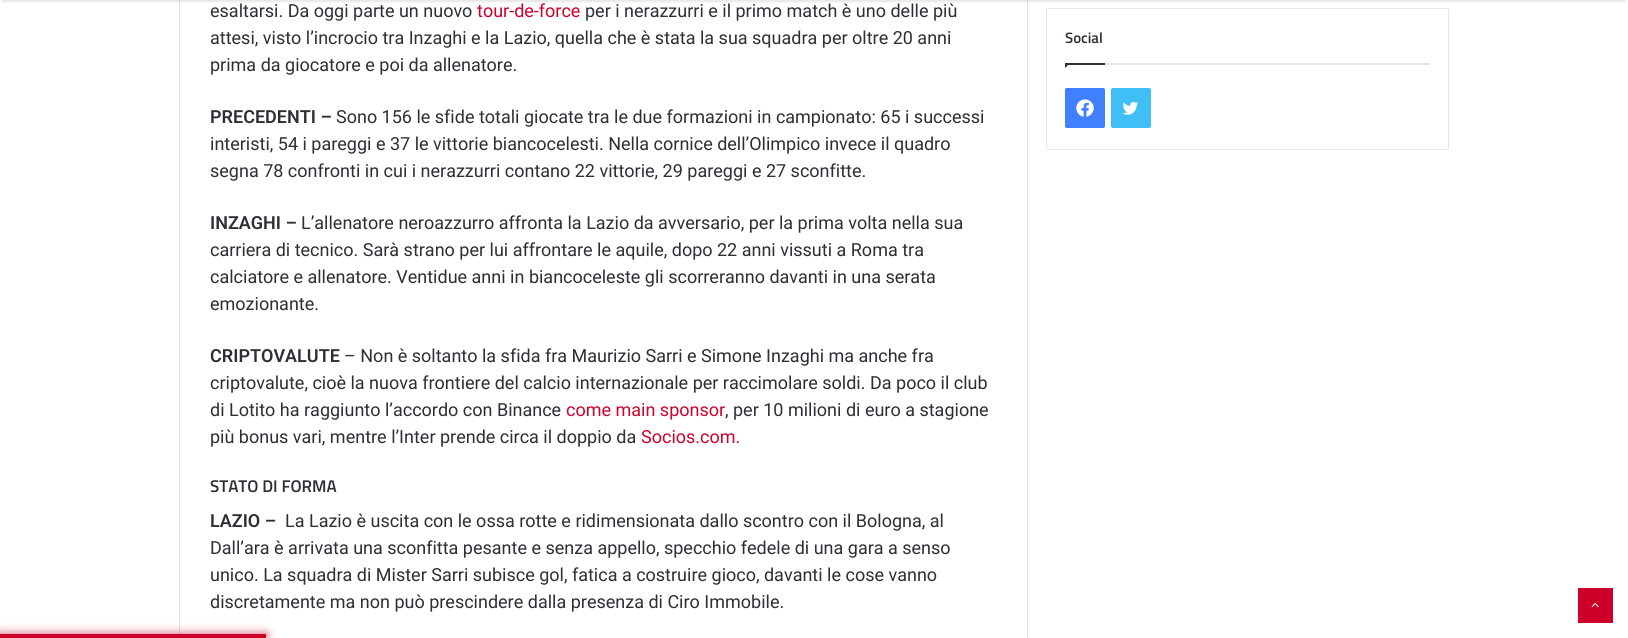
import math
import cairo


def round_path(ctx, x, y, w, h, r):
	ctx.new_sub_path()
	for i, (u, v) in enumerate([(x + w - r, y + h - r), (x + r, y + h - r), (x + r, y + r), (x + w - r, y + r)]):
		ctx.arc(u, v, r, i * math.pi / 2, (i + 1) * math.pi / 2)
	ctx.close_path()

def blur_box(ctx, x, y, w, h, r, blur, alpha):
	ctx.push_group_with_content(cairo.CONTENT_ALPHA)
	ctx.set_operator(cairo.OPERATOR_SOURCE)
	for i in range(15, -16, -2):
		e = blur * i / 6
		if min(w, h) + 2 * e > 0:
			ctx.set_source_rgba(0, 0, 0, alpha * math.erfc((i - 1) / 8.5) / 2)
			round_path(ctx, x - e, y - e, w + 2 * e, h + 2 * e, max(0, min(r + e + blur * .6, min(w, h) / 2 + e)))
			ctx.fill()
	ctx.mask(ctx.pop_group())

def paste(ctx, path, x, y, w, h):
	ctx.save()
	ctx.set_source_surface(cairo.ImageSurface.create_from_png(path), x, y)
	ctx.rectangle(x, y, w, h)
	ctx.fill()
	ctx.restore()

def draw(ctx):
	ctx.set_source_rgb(1, 1, 1)
	ctx.paint()
	ctx.rectangle(179.5, -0.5, 848, 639)
	ctx.set_source_rgb(0.902, 0.902, 0.902)
	ctx.set_line_width(1)
	ctx.stroke()
	ctx.set_source_rgb(0, 0, 0)
	blur_box(ctx, 2, -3, 1624, 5, 0, 1, 0.1)
	ctx.select_font_face('Roboto')
	ctx.set_font_size(18)
	ctx.set_source_rgb(0.173, 0.184, 0.204)
	ctx.move_to(210, 17)
	ctx.show_text('esaltarsi. Da oggi parte un nuovo')
	ctx.set_source_rgb(0.808, 0.012, 0.169)
	ctx.move_to(477, 17)
	ctx.show_text('tour-de-force')
	ctx.set_source_rgb(0.173, 0.184, 0.204)
	for x, y, s in [
		(585, 17, 'per i nerazzurri e il primo match è uno delle più'),
		(210, 44, 'attesi, visto l’incrocio tra Inzaghi e la Lazio, quella che è stata la sua squadra per oltre 20 anni'),
		(210, 71, 'prima da giocatore e poi da allenatore.'),
	]:
		ctx.move_to(x, y)
		ctx.show_text(s)
	ctx.select_font_face('Roboto SemiBold')
	ctx.move_to(210, 123)
	ctx.show_text('PRECEDENTI –')
	ctx.select_font_face('Roboto')
	for x, y, s in [
		(336, 123, 'Sono 156 le sfide totali giocate tra le due formazioni in campionato: 65 i successi'),
		(210, 150, 'interisti, 54 i pareggi e 37 le vittorie biancocelesti. Nella cornice dell’Olimpico invece il quadro'),
		(210, 177, 'segna 78 confronti in cui i nerazzurri contano 22 vittorie, 29 pareggi e 27 sconfitte.'),
	]:
		ctx.move_to(x, y)
		ctx.show_text(s)
	ctx.select_font_face('Roboto SemiBold')
	ctx.move_to(210, 229)
	ctx.show_text('INZAGHI –')
	ctx.select_font_face('Roboto')
	for x, y, s in [
		(301, 229, 'L’allenatore neroazzurro affronta la Lazio da avversario, per la prima volta nella sua'),
		(210, 256, 'carriera di tecnico. Sarà strano per lui affrontare le aquile, dopo 22 anni vissuti a Roma tra'),
		(210, 283, 'calciatore e allenatore. Ventidue anni in biancoceleste gli scorreranno davanti in una serata'),
		(210, 310, 'emozionante.'),
	]:
		ctx.move_to(x, y)
		ctx.show_text(s)
	ctx.select_font_face('Roboto SemiBold')
	ctx.move_to(210, 362)
	ctx.show_text('CRIPTOVALUTE')
	ctx.select_font_face('Roboto')
	for x, y, s in [
		(344, 362, '– Non è soltanto la sfida fra Maurizio Sarri e Simone Inzaghi ma anche fra'),
		(210, 389, 'criptovalute, cioè la nuova frontiere del calcio internazionale per raccimolare soldi. Da poco il club'),
		(210, 416, 'di Lotito ha raggiunto l’accordo con Binance'),
	]:
		ctx.move_to(x, y)
		ctx.show_text(s)
	ctx.set_source_rgb(0.808, 0.012, 0.169)
	ctx.move_to(566, 416)
	ctx.show_text('come main sponsor')
	ctx.set_source_rgb(0.173, 0.184, 0.204)
	ctx.move_to(725, 416)
	ctx.show_text(', per 10 milioni di euro a stagione')
	ctx.move_to(210, 443)
	ctx.show_text('più bonus vari, mentre l’Inter prende circa il doppio da')
	ctx.set_source_rgb(0.808, 0.012, 0.169)
	ctx.move_to(641, 443)
	ctx.show_text('Socios.com.')
	ctx.select_font_face('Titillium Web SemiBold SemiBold')
	ctx.set_font_size(17)
	ctx.set_source_rgb(0.173, 0.184, 0.204)
	ctx.move_to(210, 492)
	ctx.show_text('STATO DI FORMA')
	ctx.select_font_face('Roboto SemiBold')
	ctx.set_font_size(18)
	ctx.move_to(210, 527)
	ctx.show_text('LAZIO –')
	ctx.select_font_face('Roboto')
	for x, y, s in [
		(285, 527, 'La Lazio è uscita con le ossa rotte e ridimensionata dallo scontro con il Bologna, al'),
		(210, 554, 'Dall’ara è arrivata una sconfitta pesante e senza appello, specchio fedele di una gara a senso'),
		(210, 581, 'unico. La squadra di Mister Sarri subisce gol, fatica a costruire gioco, davanti le cose vanno'),
		(210, 608, 'discretamente ma non può prescindere dalla presenza di Ciro Immobile.'),
	]:
		ctx.move_to(x, y)
		ctx.show_text(s)
	round_path(ctx, 1046.5, 8.5, 402, 141, 1.5)
	ctx.set_source_rgb(0.902, 0.902, 0.902)
	ctx.stroke()
	ctx.rectangle(1105, 63, 325, 2)
	ctx.fill()
	ctx.select_font_face('Titillium Web SemiBold SemiBold')
	ctx.set_font_size(15)
	ctx.set_source_rgb(0.173, 0.184, 0.204)
	ctx.move_to(1065, 43)
	ctx.show_text('Social')
	ctx.new_path()
	ctx.move_to(1065, 63)
	ctx.line_to(1070, 63)
	ctx.line_to(1065, 68)
	ctx.close_path()
	ctx.fill()
	ctx.rectangle(1065, 63, 40, 2)
	ctx.fill()
	ctx.set_source_rgb(0.251, 0.502, 1)
	round_path(ctx, 1065, 88, 40, 40, 2)
	ctx.fill()
	paste(ctx, 'media/1.png', 1076, 99, 18, 18)
	ctx.set_source_rgb(0.251, 0.749, 0.961)
	round_path(ctx, 1111, 88, 40, 40, 2)
	ctx.fill()
	paste(ctx, 'media/2.png', 1122, 101, 17, 14)
	ctx.set_source_rgb(0.808, 0, 0.161)
	ctx.rectangle(1578, 588, 35, 35)
	ctx.fill()
	paste(ctx, 'media/3.png', 1591, 602, 8, 6)
	ctx.set_source_rgb(0.808, 0, 0.161)
	blur_box(ctx, 0, 634, 266, 4, 0, 5, 0.7)
	ctx.set_source_rgb(0.808, 0, 0.161)
	ctx.rectangle(0, 634, 266, 4)
	ctx.fill()


surface = cairo.ImageSurface(cairo.FORMAT_RGB24, 1628, 638)
ctx = cairo.Context(surface)
options = cairo.FontOptions()
options.set_hint_metrics(cairo.HINT_METRICS_OFF)
options.set_hint_style(cairo.HINT_STYLE_NONE)
ctx.set_font_options(options)
ctx.set_miter_limit(4)
draw(ctx)
surface.write_to_png('image.png')
